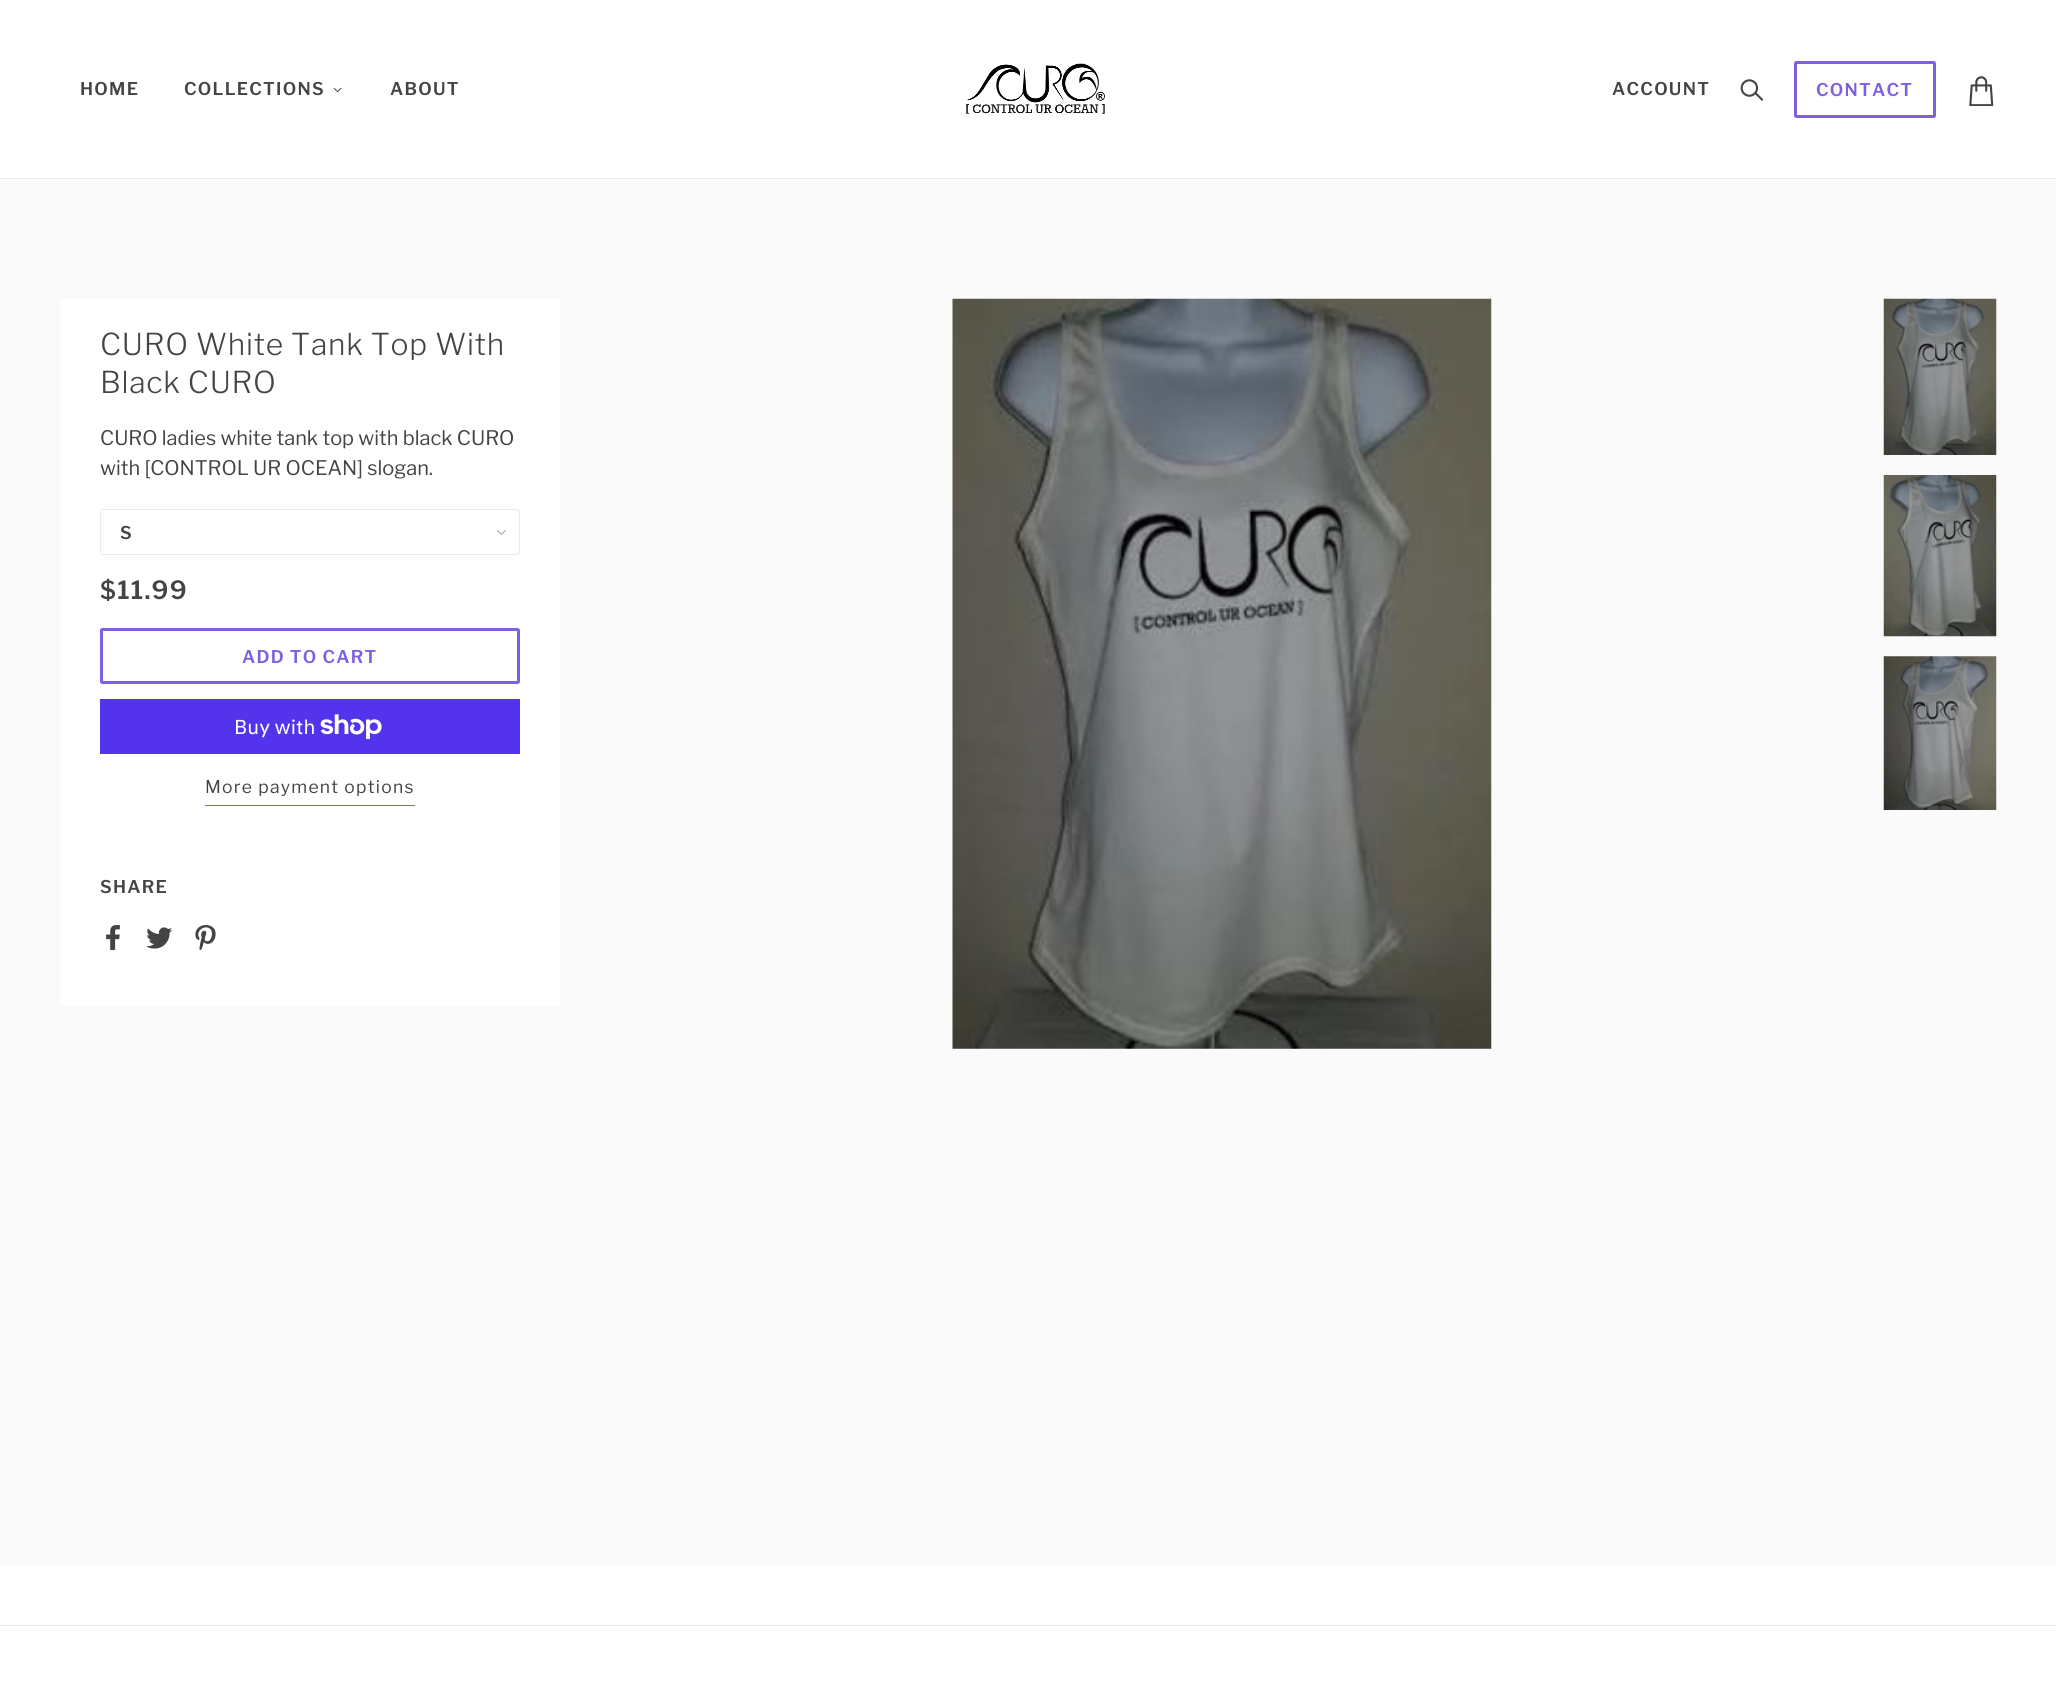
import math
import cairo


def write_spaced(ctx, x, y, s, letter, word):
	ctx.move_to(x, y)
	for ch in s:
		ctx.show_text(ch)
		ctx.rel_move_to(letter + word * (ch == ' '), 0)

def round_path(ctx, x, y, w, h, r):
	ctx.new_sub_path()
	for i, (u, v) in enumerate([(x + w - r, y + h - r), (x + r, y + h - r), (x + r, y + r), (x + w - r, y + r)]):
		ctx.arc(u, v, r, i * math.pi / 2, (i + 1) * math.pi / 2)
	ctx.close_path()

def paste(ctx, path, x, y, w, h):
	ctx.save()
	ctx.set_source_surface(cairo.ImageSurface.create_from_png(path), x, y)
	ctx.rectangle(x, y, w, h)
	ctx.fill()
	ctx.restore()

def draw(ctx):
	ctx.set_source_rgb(1, 1, 1)
	ctx.paint()
	ctx.set_source_rgb(0.918, 0.918, 0.918)
	ctx.rectangle(0, 178, 2056, 1)
	ctx.fill()
	ctx.select_font_face('Libre Franklin SemiBold')
	ctx.set_font_size(17.5)
	ctx.set_source_rgb(0.267, 0.267, 0.267)
	write_spaced(ctx, 80, 95, 'HOME', 1.25, 0)
	write_spaced(ctx, 184, 95, 'COLLECTIONS', 1.25, 0)
	paste(ctx, 'media/1.png', 333, 87, 9, 6)
	write_spaced(ctx, 390, 95, 'ABOUT', 1.25, 0)
	paste(ctx, 'media/2.png', 966, 63, 139, 51)
	write_spaced(ctx, 1612, 95, 'ACCOUNT', 1.25, 0)
	paste(ctx, 'media/3.png', 1740, 79, 24, 22)
	round_path(ctx, 1795.5, 62.5, 139, 54, 1)
	ctx.set_source_rgb(0.494, 0.376, 0.875)
	ctx.set_line_width(3)
	ctx.stroke()
	write_spaced(ctx, 1816, 96, 'CONTACT', 1.25, 0)
	paste(ctx, 'media/4.png', 1969, 76, 25, 30)
	ctx.set_source_rgb(0.98, 0.98, 0.98)
	ctx.rectangle(0, 179, 2056, 1386)
	ctx.fill()
	ctx.set_source_rgb(1, 1, 1)
	ctx.rectangle(60, 299, 500, 707)
	ctx.fill()
	ctx.select_font_face('Libre Franklin Light')
	ctx.set_font_size(30)
	ctx.set_source_rgb(0.267, 0.267, 0.267)
	write_spaced(ctx, 100, 355, 'CURO White Tank Top With', 0.75, 0)
	write_spaced(ctx, 100, 393, 'Black CURO', 0.75, 0)
	ctx.select_font_face('Libre Franklin')
	ctx.set_font_size(20)
	ctx.move_to(100, 445)
	ctx.show_text('CURO ladies white tank top with black CURO')
	ctx.move_to(100, 475)
	ctx.show_text('with [CONTROL UR OCEAN] slogan.')
	paste(ctx, 'media/5.png', 496, 530, 10, 5)
	round_path(ctx, 100.5, 509.5, 419, 45, 2)
	ctx.set_source_rgb(0.918, 0.918, 0.918)
	ctx.set_line_width(1)
	ctx.stroke()
	ctx.select_font_face('Libre Franklin SemiBold')
	ctx.set_font_size(17.5)
	ctx.set_source_rgb(0.267, 0.267, 0.267)
	write_spaced(ctx, 120, 539, 'S', 1.25, 0)
	ctx.set_font_size(25)
	write_spaced(ctx, 100, 599, '$11.99', 1.25, 0)
	round_path(ctx, 101.5, 629.5, 417, 53, 1)
	ctx.set_source_rgb(0.494, 0.376, 0.875)
	ctx.set_line_width(3)
	ctx.stroke()
	ctx.set_font_size(17.5)
	write_spaced(ctx, 242, 663, 'ADD TO CART', 1.25, 0)
	ctx.set_source_rgb(0.329, 0.2, 0.922)
	ctx.rectangle(100, 699, 420, 55)
	ctx.fill()
	ctx.select_font_face('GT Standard')
	ctx.set_font_size(20)
	ctx.set_source_rgb(1, 1, 1)
	ctx.move_to(234, 734)
	ctx.show_text('Buy with')
	paste(ctx, 'media/6.png', 320, 714, 62, 25)
	ctx.set_source_rgb(0.494, 0.376, 0.875)
	ctx.rectangle(205, 805, 210, 1)
	ctx.fill()
	ctx.select_font_face('Libre Franklin')
	ctx.set_font_size(17.5)
	ctx.set_source_rgb(0.267, 0.267, 0.267)
	write_spaced(ctx, 205, 793, 'More payment options', 1.25, 0)
	ctx.select_font_face('Libre Franklin SemiBold')
	write_spaced(ctx, 100, 893, 'SHARE', 1.25, 0)
	paste(ctx, 'media/7.png', 106, 925, 14, 25)
	paste(ctx, 'media/8.png', 146, 927, 26, 22)
	paste(ctx, 'media/9.png', 195, 925, 21, 25)
	paste(ctx, 'media/10.png', 952, 298, 540, 751)
	paste(ctx, 'media/11.png', 1883, 298, 114, 157)
	paste(ctx, 'media/12.png', 1883, 475, 114, 162)
	paste(ctx, 'media/13.png', 1883, 656, 114, 154)
	ctx.set_source_rgb(0.918, 0.918, 0.918)
	ctx.rectangle(0, 1625, 2056, 1)
	ctx.fill()


surface = cairo.ImageSurface(cairo.FORMAT_RGB24, 2056, 1681)
ctx = cairo.Context(surface)
options = cairo.FontOptions()
options.set_hint_metrics(cairo.HINT_METRICS_OFF)
options.set_hint_style(cairo.HINT_STYLE_NONE)
ctx.set_font_options(options)
ctx.set_miter_limit(4)
draw(ctx)
surface.write_to_png('image.png')
